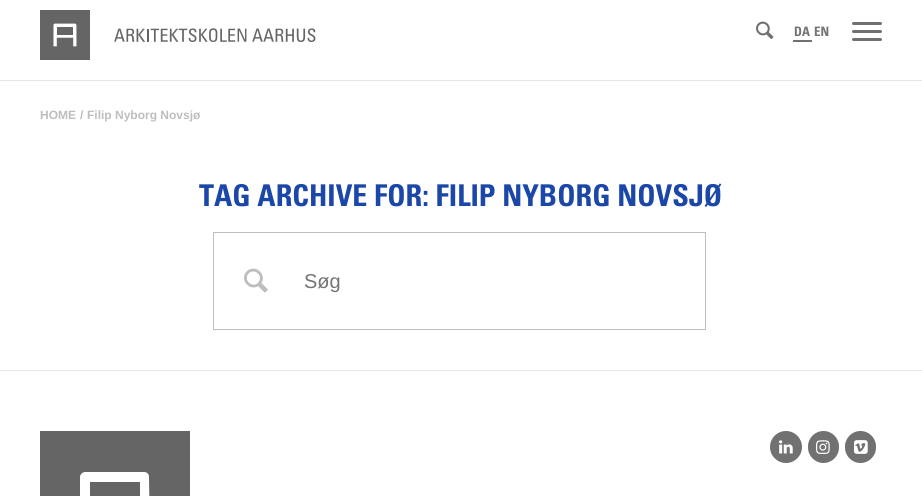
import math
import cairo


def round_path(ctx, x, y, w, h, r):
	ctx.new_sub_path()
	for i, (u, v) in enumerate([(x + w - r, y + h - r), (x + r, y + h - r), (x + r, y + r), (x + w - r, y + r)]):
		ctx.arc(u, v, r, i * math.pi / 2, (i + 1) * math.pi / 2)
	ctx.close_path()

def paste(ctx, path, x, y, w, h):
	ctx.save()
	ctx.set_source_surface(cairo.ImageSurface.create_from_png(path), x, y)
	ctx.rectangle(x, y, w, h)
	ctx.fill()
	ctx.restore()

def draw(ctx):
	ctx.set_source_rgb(1, 1, 1)
	ctx.paint()
	paste(ctx, 'media/1.png', 40, 10, 276, 50)
	paste(ctx, 'media/2.png', 756, 21, 18, 18)
	ctx.select_font_face('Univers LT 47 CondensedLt', cairo.FONT_SLANT_NORMAL, cairo.FONT_WEIGHT_BOLD)
	ctx.set_font_size(13)
	ctx.set_source_rgb(0.455, 0.455, 0.455)
	ctx.move_to(794, 36)
	ctx.show_text('DA')
	ctx.set_source_rgb(0.443, 0.443, 0.443)
	ctx.rectangle(793, 40, 19, 2)
	ctx.fill()
	ctx.set_source_rgb(0.455, 0.455, 0.455)
	ctx.move_to(814, 36)
	ctx.show_text('EN')
	ctx.set_source_rgb(0.443, 0.443, 0.443)
	round_path(ctx, 852, 30, 30, 3, 1.5)
	ctx.fill()
	round_path(ctx, 852, 22, 30, 3, 1.5)
	ctx.fill()
	round_path(ctx, 852, 38, 30, 3, 1.5)
	ctx.fill()
	ctx.set_source_rgb(0.906, 0.906, 0.906)
	ctx.rectangle(0, 80, 922, 1)
	ctx.fill()
	ctx.select_font_face('Liberation Sans', cairo.FONT_SLANT_NORMAL, cairo.FONT_WEIGHT_BOLD)
	ctx.set_font_size(12)
	ctx.set_source_rgb(0.745, 0.745, 0.745)
	for x, y, s in [
		(40, 119, 'HOME'),
		(80, 119, '/'),
		(87, 119, 'Filip Nyborg Novsjø'),
	]:
		ctx.move_to(x, y)
		ctx.show_text(s)
	ctx.select_font_face('Univers LT 47 CondensedLt', cairo.FONT_SLANT_NORMAL, cairo.FONT_WEIGHT_BOLD)
	ctx.set_font_size(30)
	ctx.set_source_rgb(0.106, 0.278, 0.663)
	ctx.move_to(199, 206)
	ctx.show_text('TAG ARCHIVE FOR: FILIP NYBORG NOVSJØ')
	ctx.rectangle(213.5, 232.5, 492, 97)
	ctx.set_source_rgb(0.745, 0.745, 0.745)
	ctx.set_line_width(1)
	ctx.stroke()
	paste(ctx, 'media/3.png', 244, 268, 24, 25)
	ctx.select_font_face('Liberation Sans')
	ctx.set_font_size(20)
	ctx.set_source_rgb(0.455, 0.455, 0.455)
	ctx.move_to(304, 288)
	ctx.show_text('Søg')
	ctx.set_source_rgb(0.906, 0.906, 0.906)
	ctx.rectangle(0, 370, 922, 1)
	ctx.fill()
	ctx.set_source_rgb(0.396, 0.396, 0.396)
	ctx.new_path()
	ctx.move_to(40, 431)
	ctx.line_to(40, 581)
	ctx.line_to(190, 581)
	ctx.line_to(190, 431)
	ctx.close_path()
	ctx.move_to(150, 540)
	ctx.line_to(140, 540)
	ctx.line_to(140, 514)
	ctx.line_to(90, 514)
	ctx.line_to(90, 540)
	ctx.line_to(80, 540)
	ctx.line_to(80, 477)
	ctx.curve_to(80, 474, 83, 472, 85, 472)
	ctx.line_to(144, 472)
	ctx.curve_to(147, 472, 149, 474, 149, 477)
	ctx.close_path()
	ctx.fill()
	ctx.rectangle(90, 482, 50, 14)
	ctx.fill()
	ctx.set_source_rgb(0.443, 0.443, 0.443)
	ctx.arc(786, 447, 16, 0, 2 * math.pi)
	ctx.fill()
	paste(ctx, 'media/4.png', 779, 440, 14, 14)
	round_path(ctx, 808, 431, 31, 32, 15.5)
	ctx.fill()
	paste(ctx, 'media/5.png', 816, 440, 14, 14)
	round_path(ctx, 845, 431, 31, 32, 15.5)
	ctx.fill()
	paste(ctx, 'media/6.png', 854, 440, 14, 14)


surface = cairo.ImageSurface(cairo.FORMAT_RGB24, 922, 496)
ctx = cairo.Context(surface)
options = cairo.FontOptions()
options.set_hint_metrics(cairo.HINT_METRICS_OFF)
options.set_hint_style(cairo.HINT_STYLE_NONE)
ctx.set_font_options(options)
ctx.set_miter_limit(4)
draw(ctx)
surface.write_to_png('image.png')
